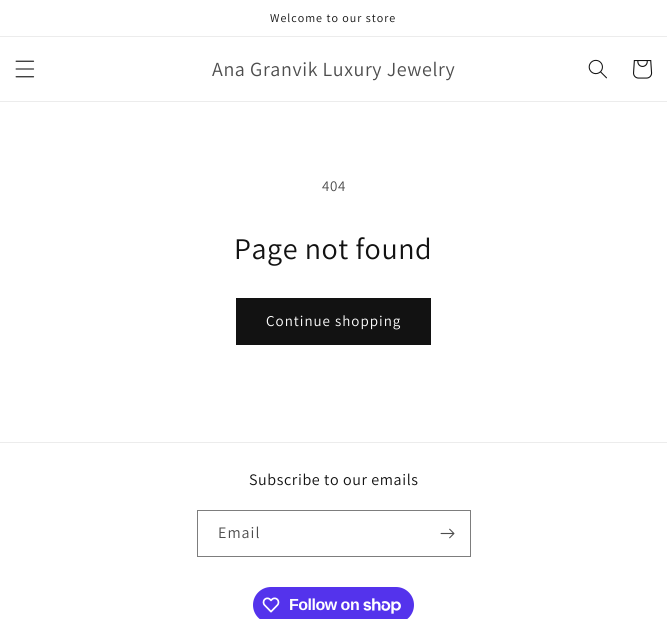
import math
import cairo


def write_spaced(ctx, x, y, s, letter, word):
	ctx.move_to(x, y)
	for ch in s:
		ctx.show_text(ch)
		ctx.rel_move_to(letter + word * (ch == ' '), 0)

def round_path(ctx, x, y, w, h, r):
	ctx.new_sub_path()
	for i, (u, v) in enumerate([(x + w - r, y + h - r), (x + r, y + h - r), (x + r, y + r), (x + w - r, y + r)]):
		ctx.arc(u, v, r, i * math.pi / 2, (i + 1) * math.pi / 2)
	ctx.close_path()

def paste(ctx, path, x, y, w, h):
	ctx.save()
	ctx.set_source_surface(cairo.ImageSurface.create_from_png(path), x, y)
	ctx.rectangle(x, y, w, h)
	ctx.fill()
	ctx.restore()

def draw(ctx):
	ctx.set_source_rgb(1, 1, 1)
	ctx.paint()
	ctx.set_source_rgb(0.925, 0.925, 0.925)
	ctx.rectangle(0, 36, 667, 1)
	ctx.fill()
	ctx.select_font_face('Assistant')
	ctx.set_font_size(12)
	ctx.set_source_rgb(0.071, 0.071, 0.071)
	write_spaced(ctx, 270, 22, 'Welcome to our store', 1, 0)
	ctx.set_source_rgb(0.925, 0.925, 0.925)
	ctx.rectangle(0, 101, 667, 1)
	ctx.fill()
	paste(ctx, 'media/1.png', 15, 60, 20, 18)
	ctx.set_font_size(20)
	ctx.set_source_rgb(0.302, 0.302, 0.302)
	write_spaced(ctx, 212, 76, 'Ana Granvik Luxury Jewelry', 0.6, 0)
	paste(ctx, 'media/2.png', 588, 59, 19, 20)
	paste(ctx, 'media/3.png', 633, 60, 20, 19)
	ctx.set_font_size(15)
	write_spaced(ctx, 322, 191, '404', 0.6, 0)
	ctx.set_font_size(30)
	ctx.set_source_rgb(0.071, 0.071, 0.071)
	write_spaced(ctx, 234, 259, 'Page not found', 0.6, 0)
	ctx.rectangle(236, 298, 195, 47)
	ctx.fill()
	ctx.set_font_size(15)
	ctx.set_source_rgb(1, 1, 1)
	write_spaced(ctx, 266, 326, 'Continue shopping', 1, 0)
	ctx.set_source_rgb(0.925, 0.925, 0.925)
	ctx.rectangle(0, 442, 667, 1)
	ctx.fill()
	ctx.set_font_size(16)
	ctx.set_source_rgb(0.071, 0.071, 0.071)
	write_spaced(ctx, 249, 485, 'Subscribe to our emails', 0.6, 0)
	ctx.rectangle(197.5, 510.5, 273, 46)
	ctx.set_source_rgb(0.49, 0.49, 0.49)
	ctx.set_line_width(1)
	ctx.stroke()
	ctx.set_source_rgb(0.302, 0.302, 0.302)
	write_spaced(ctx, 218, 538, 'Email', 1, 0)
	paste(ctx, 'media/4.png', 440, 528, 15, 11)
	ctx.set_source_rgb(0.329, 0.2, 0.922)
	round_path(ctx, 253, 587, 161, 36, 18)
	ctx.fill()
	paste(ctx, 'media/5.png', 262, 597, 18, 16)
	ctx.select_font_face('Liberation Sans', cairo.FONT_SLANT_NORMAL, cairo.FONT_WEIGHT_BOLD)
	ctx.set_source_rgb(1, 1, 1)
	write_spaced(ctx, 289, 610, 'Follow on', -0.5, 0)
	paste(ctx, 'media/6.png', 363, 598, 38, 16)


surface = cairo.ImageSurface(cairo.FORMAT_RGB24, 667, 619)
ctx = cairo.Context(surface)
options = cairo.FontOptions()
options.set_hint_metrics(cairo.HINT_METRICS_OFF)
options.set_hint_style(cairo.HINT_STYLE_NONE)
ctx.set_font_options(options)
ctx.set_miter_limit(4)
draw(ctx)
surface.write_to_png('image.png')
